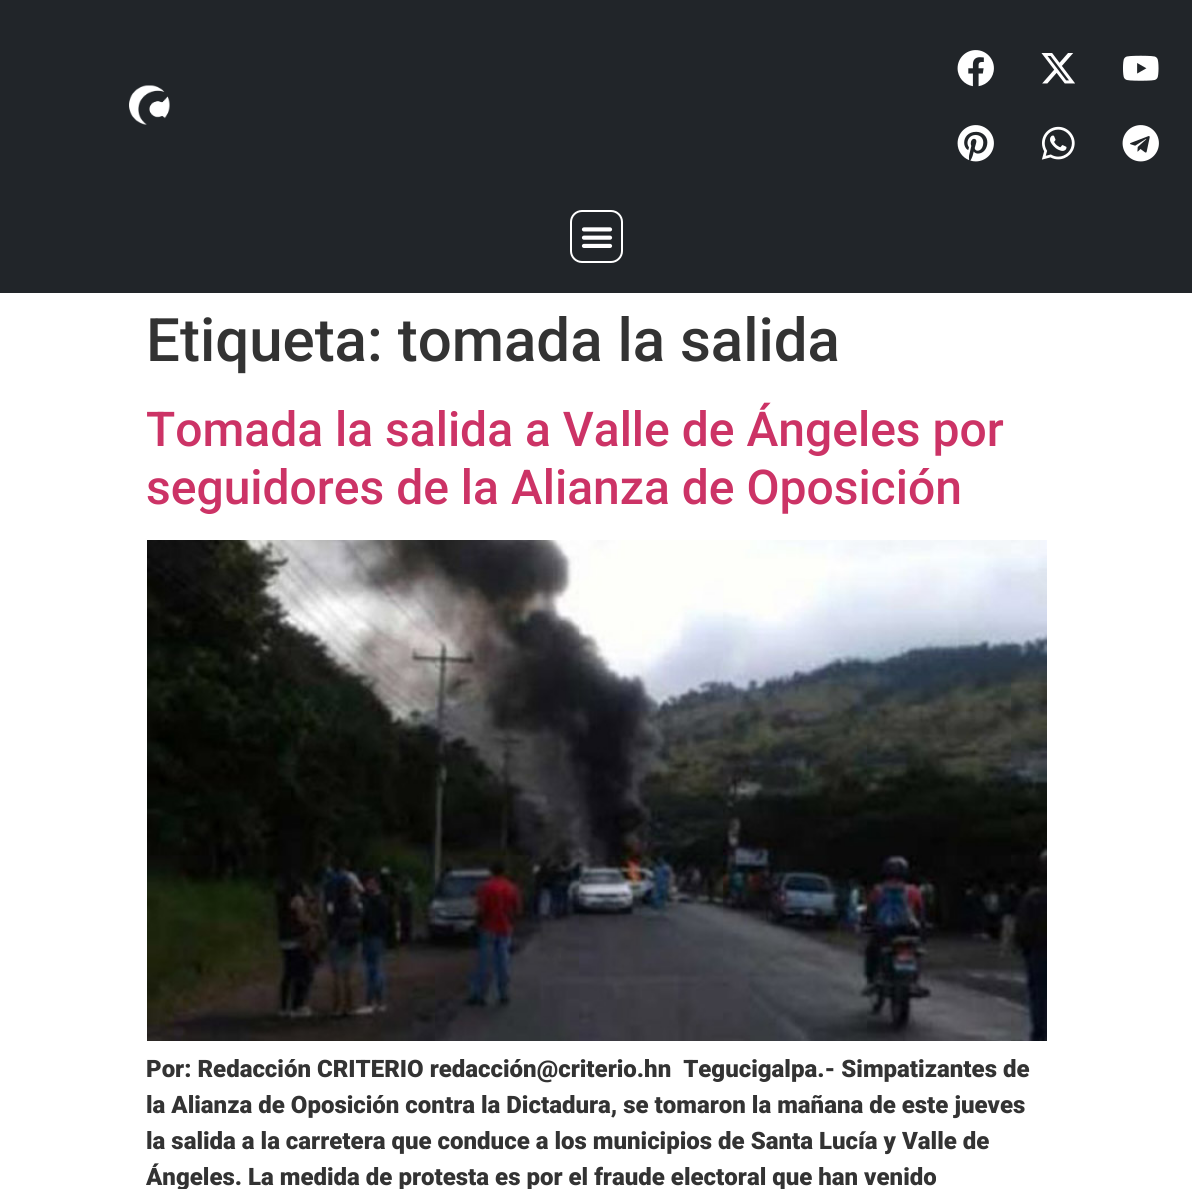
import math
import cairo


def round_path(ctx, x, y, w, h, r):
	ctx.new_sub_path()
	for i, (u, v) in enumerate([(x + w - r, y + h - r), (x + r, y + h - r), (x + r, y + r), (x + w - r, y + r)]):
		ctx.arc(u, v, r, i * math.pi / 2, (i + 1) * math.pi / 2)
	ctx.close_path()

def paste(ctx, path, x, y, w, h):
	ctx.save()
	ctx.set_source_surface(cairo.ImageSurface.create_from_png(path), x, y)
	ctx.rectangle(x, y, w, h)
	ctx.fill()
	ctx.restore()

def draw(ctx):
	ctx.set_source_rgb(1, 1, 1)
	ctx.paint()
	ctx.set_source_rgb(0.129, 0.145, 0.161)
	ctx.rectangle(0, 0, 1192, 293)
	ctx.fill()
	paste(ctx, 'media/1.png', 129, 85, 41, 40)
	paste(ctx, 'media/2.png', 957, 50, 37, 37)
	paste(ctx, 'media/3.png', 1041, 53, 34, 31)
	paste(ctx, 'media/4.png', 1123, 55, 36, 26)
	paste(ctx, 'media/5.png', 957, 125, 37, 37)
	paste(ctx, 'media/6.png', 1041, 126, 34, 34)
	paste(ctx, 'media/7.png', 1122, 125, 37, 37)
	round_path(ctx, 571, 211, 51, 51, 11)
	ctx.set_source_rgb(1, 1, 1)
	ctx.stroke()
	paste(ctx, 'media/8.png', 581, 227, 32, 21)
	ctx.select_font_face('Roboto Medium')
	ctx.set_font_size(60)
	ctx.set_source_rgb(0.2, 0.2, 0.2)
	ctx.move_to(146, 361)
	ctx.show_text('Etiqueta: tomada la salida')
	ctx.set_font_size(48)
	ctx.set_source_rgb(0.8, 0.2, 0.4)
	ctx.move_to(146, 446)
	ctx.show_text('Tomada la salida a Valle de Ángeles por')
	ctx.move_to(146, 504)
	ctx.show_text('seguidores de la Alianza de Oposición')
	paste(ctx, 'media/9.png', 147, 540, 900, 501)
	ctx.select_font_face('Roboto Black')
	ctx.set_font_size(24)
	ctx.set_source_rgb(0.2, 0.2, 0.2)
	for x, y, s in [
		(146, 1077, 'Por: Redacción CRITERIO redacción@criterio.hn  Tegucigalpa.- Simpatizantes de'),
		(146, 1113, 'la Alianza de Oposición contra la Dictadura, se tomaron la mañana de este jueves'),
		(146, 1149, 'la salida a la carretera que conduce a los municipios de Santa Lucía y Valle de'),
		(146, 1185, 'Ángeles. La medida de protesta es por el fraude electoral que han venido'),
	]:
		ctx.move_to(x, y)
		ctx.show_text(s)


surface = cairo.ImageSurface(cairo.FORMAT_RGB24, 1192, 1189)
ctx = cairo.Context(surface)
options = cairo.FontOptions()
options.set_hint_metrics(cairo.HINT_METRICS_OFF)
options.set_hint_style(cairo.HINT_STYLE_NONE)
ctx.set_font_options(options)
ctx.set_miter_limit(4)
draw(ctx)
surface.write_to_png('image.png')
